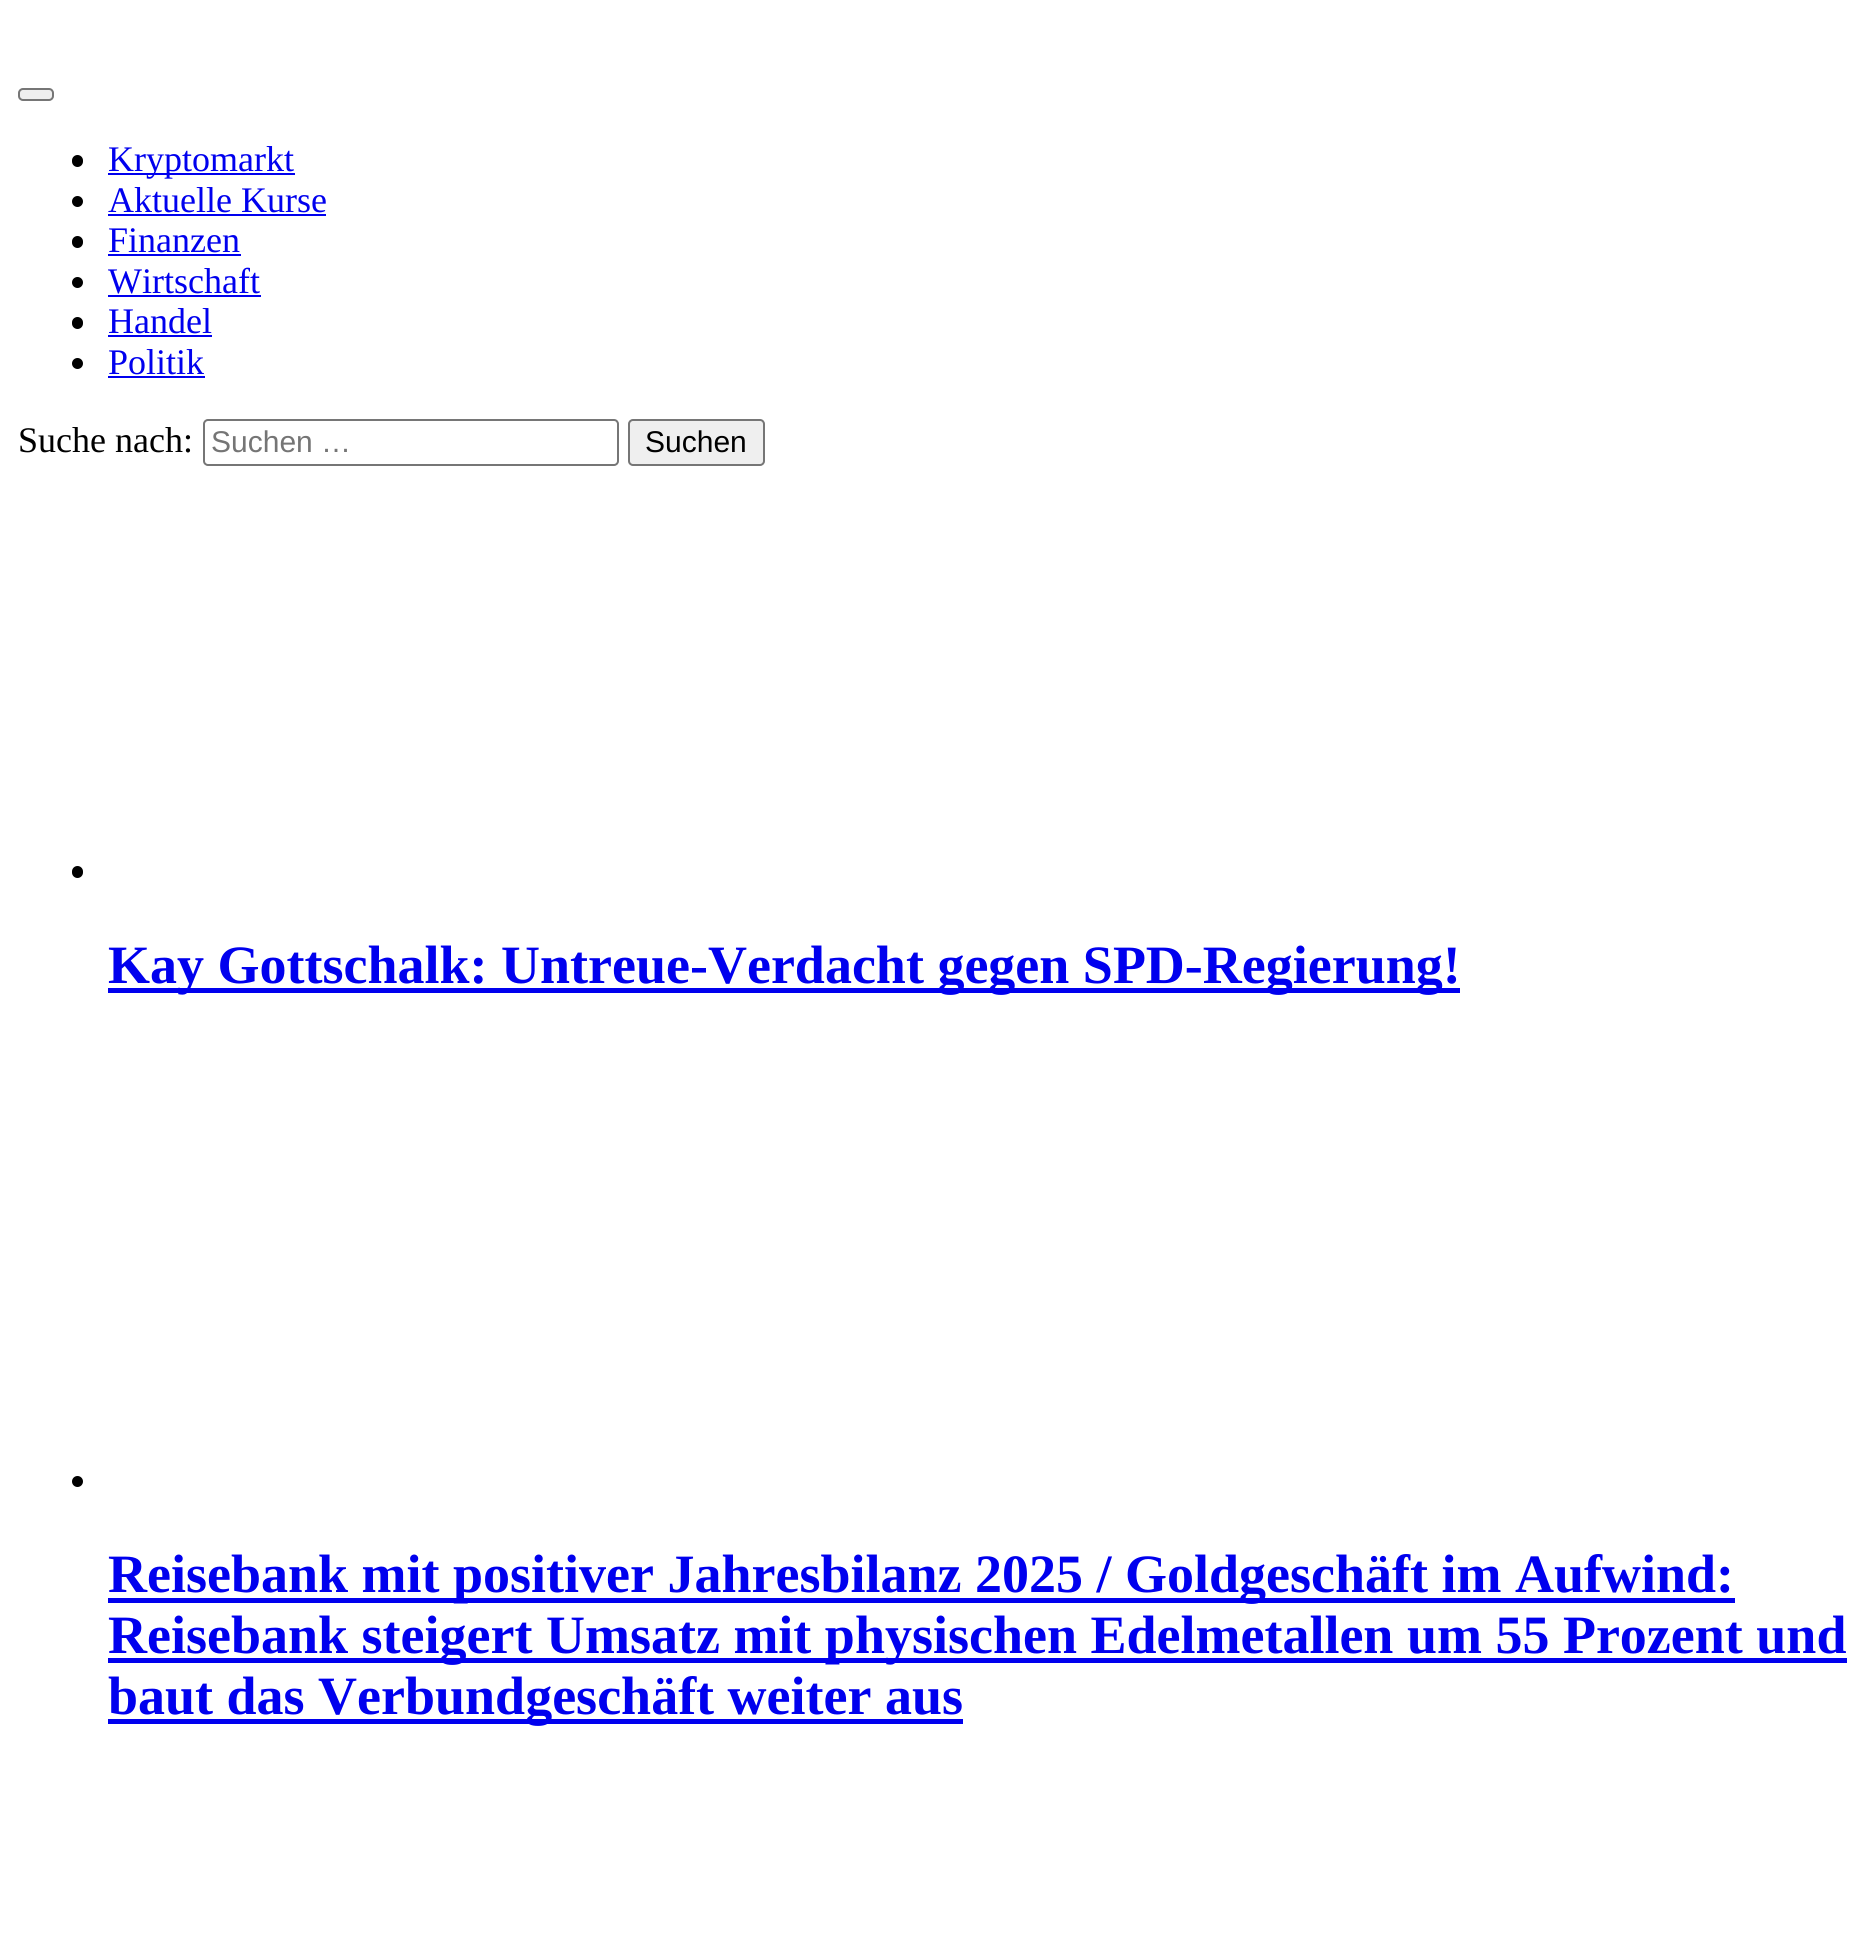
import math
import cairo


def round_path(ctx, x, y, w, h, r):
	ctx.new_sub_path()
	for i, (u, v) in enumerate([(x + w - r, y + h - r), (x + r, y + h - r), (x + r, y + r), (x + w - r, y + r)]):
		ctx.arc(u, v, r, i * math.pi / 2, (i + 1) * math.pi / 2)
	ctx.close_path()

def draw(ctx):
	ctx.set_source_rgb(1, 1, 1)
	ctx.paint()
	ctx.set_source_rgb(0.937, 0.937, 0.937)
	round_path(ctx, 19, 89, 34, 11, 4)
	ctx.fill_preserve()
	ctx.set_source_rgb(0.463, 0.463, 0.463)
	ctx.stroke()
	ctx.set_source_rgb(0, 0, 0)
	round_path(ctx, 72, 155, 11, 12, 5.5)
	ctx.fill()
	ctx.set_source_rgb(0, 0, 0.933)
	ctx.rectangle(108, 173, 187, 2)
	ctx.fill()
	ctx.select_font_face('Liberation Serif')
	ctx.set_font_size(36)
	ctx.move_to(108, 171)
	ctx.show_text('Kryptomarkt')
	ctx.set_source_rgb(0, 0, 0)
	ctx.new_path()
	ctx.arc(77.5, 201.5, 5.5, 0, 2 * math.pi)
	ctx.fill()
	ctx.set_source_rgb(0, 0, 0.933)
	ctx.move_to(108, 212)
	ctx.show_text('Aktuelle Kurse')
	ctx.rectangle(108, 214, 218, 2)
	ctx.fill()
	ctx.set_source_rgb(0, 0, 0)
	round_path(ctx, 72, 236, 11, 12, 5.5)
	ctx.fill()
	ctx.set_source_rgb(0, 0, 0.933)
	ctx.move_to(108, 252)
	ctx.show_text('Finanzen')
	ctx.rectangle(108, 254, 133, 2)
	ctx.fill()
	ctx.set_source_rgb(0, 0, 0)
	ctx.arc(77.5, 282.5, 5.5, 0, 2 * math.pi)
	ctx.fill()
	ctx.set_source_rgb(0, 0, 0.933)
	ctx.move_to(108, 293)
	ctx.show_text('Wirtschaft')
	ctx.rectangle(108, 295, 153, 2)
	ctx.fill()
	ctx.set_source_rgb(0, 0, 0)
	round_path(ctx, 72, 317, 11, 12, 5.5)
	ctx.fill()
	ctx.set_source_rgb(0, 0, 0.933)
	ctx.move_to(108, 333)
	ctx.show_text('Handel')
	ctx.rectangle(108, 335, 104, 2)
	ctx.fill()
	ctx.set_source_rgb(0, 0, 0)
	ctx.arc(77.5, 363.5, 5.5, 0, 2 * math.pi)
	ctx.fill()
	ctx.set_source_rgb(0, 0, 0.933)
	ctx.move_to(108, 374)
	ctx.show_text('Politik')
	ctx.rectangle(108, 376, 97, 2)
	ctx.fill()
	ctx.set_source_rgb(0, 0, 0)
	ctx.move_to(18, 452)
	ctx.show_text('Suche nach:')
	round_path(ctx, 204, 420, 414, 45, 4)
	ctx.set_source_rgb(0.463, 0.463, 0.463)
	ctx.stroke()
	ctx.select_font_face('Liberation Sans')
	ctx.set_font_size(30)
	ctx.set_source_rgb(0.459, 0.459, 0.459)
	ctx.move_to(211, 452)
	ctx.show_text('Suchen …')
	ctx.set_source_rgb(0.937, 0.937, 0.937)
	round_path(ctx, 629, 420, 135, 45, 4)
	ctx.fill_preserve()
	ctx.set_source_rgb(0.463, 0.463, 0.463)
	ctx.stroke()
	ctx.set_source_rgb(0, 0, 0)
	ctx.move_to(645, 452)
	ctx.show_text('Suchen')
	round_path(ctx, 72, 866, 11, 12, 5.5)
	ctx.fill()
	ctx.set_source_rgb(0, 0, 0.933)
	ctx.rectangle(108, 988, 1352, 5)
	ctx.fill()
	ctx.select_font_face('Liberation Serif', cairo.FONT_SLANT_NORMAL, cairo.FONT_WEIGHT_BOLD)
	ctx.set_font_size(54)
	ctx.move_to(108, 983)
	ctx.show_text('Kay Gottschalk: Untreue-Verdacht gegen SPD-Regierung!')
	ctx.set_source_rgb(0, 0, 0)
	ctx.new_path()
	ctx.arc(77.5, 1481.5, 5.5, 0, 2 * math.pi)
	ctx.fill()
	ctx.set_source_rgb(0, 0, 0.933)
	ctx.rectangle(108, 1598, 1627, 5)
	ctx.fill()
	ctx.move_to(108, 1592)
	ctx.show_text('Reisebank mit positiver Jahresbilanz 2025 / Goldgeschäft im Aufwind:')
	ctx.rectangle(108, 1658, 1739, 5)
	ctx.fill()
	ctx.move_to(108, 1653)
	ctx.show_text('Reisebank steigert Umsatz mit physischen Edelmetallen um 55 Prozent und')
	ctx.rectangle(108, 1719, 855, 5)
	ctx.fill()
	ctx.move_to(108, 1714)
	ctx.show_text('baut das Verbundgeschäft weiter aus')


surface = cairo.ImageSurface(cairo.FORMAT_RGB24, 1874, 1934)
ctx = cairo.Context(surface)
options = cairo.FontOptions()
options.set_hint_metrics(cairo.HINT_METRICS_OFF)
options.set_hint_style(cairo.HINT_STYLE_NONE)
ctx.set_font_options(options)
ctx.set_miter_limit(4)
draw(ctx)
surface.write_to_png('image.png')
